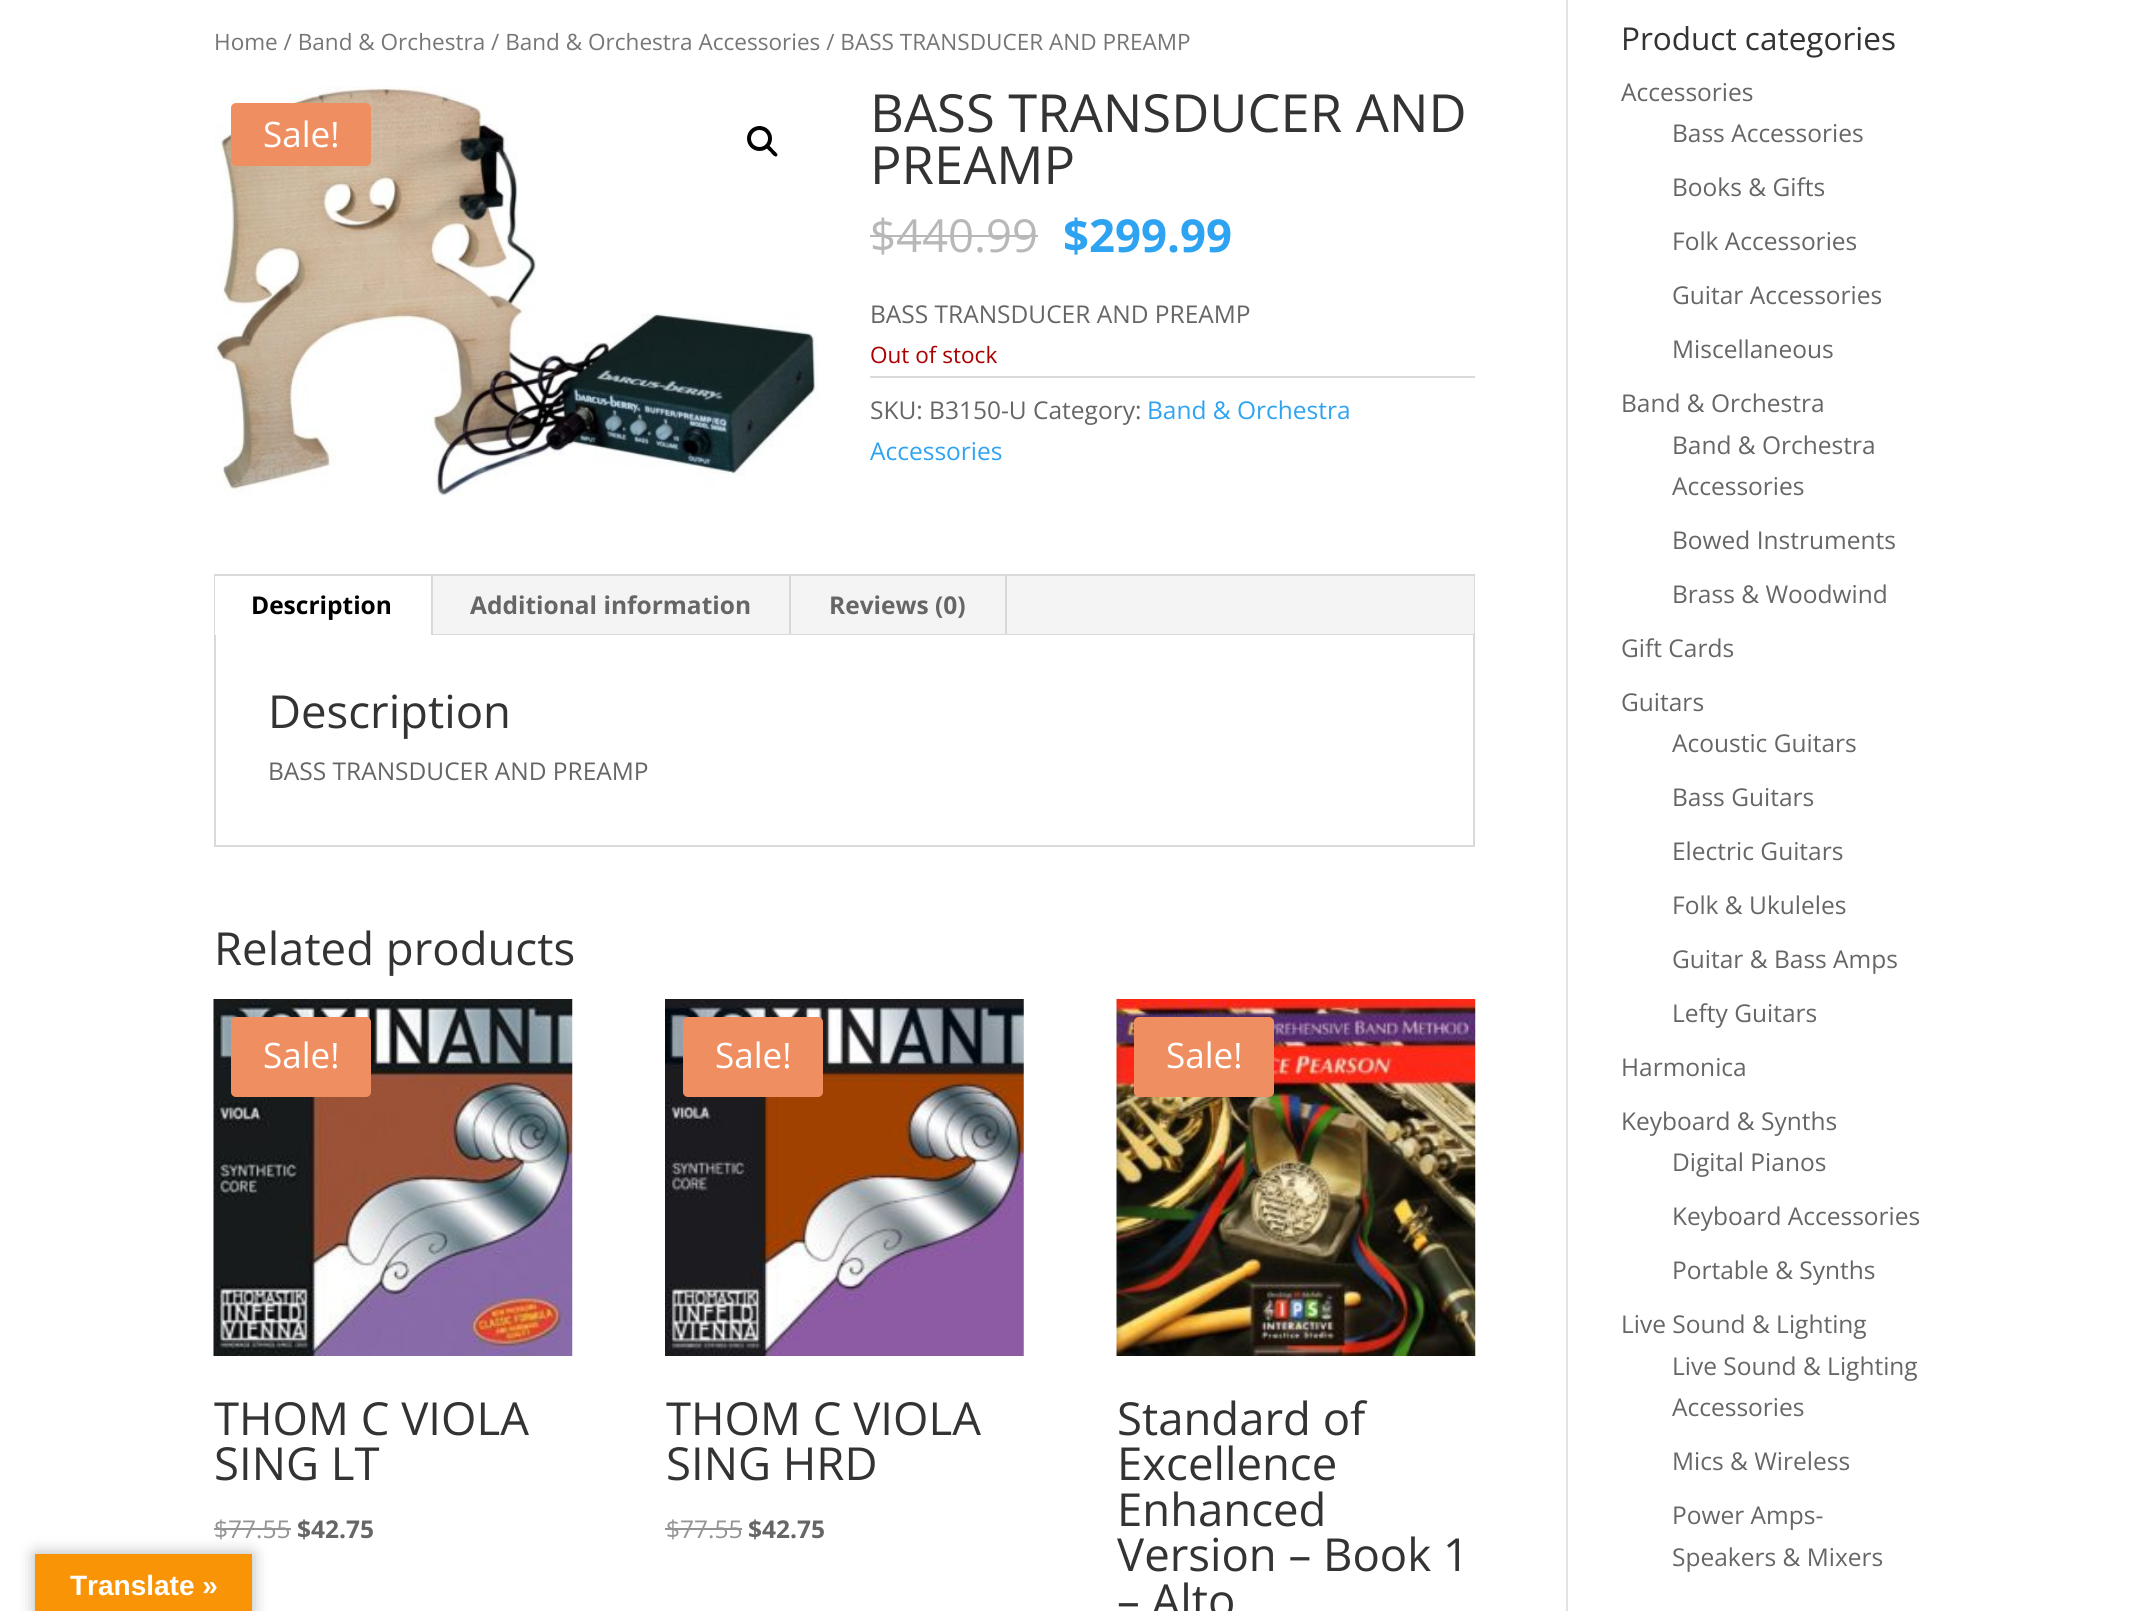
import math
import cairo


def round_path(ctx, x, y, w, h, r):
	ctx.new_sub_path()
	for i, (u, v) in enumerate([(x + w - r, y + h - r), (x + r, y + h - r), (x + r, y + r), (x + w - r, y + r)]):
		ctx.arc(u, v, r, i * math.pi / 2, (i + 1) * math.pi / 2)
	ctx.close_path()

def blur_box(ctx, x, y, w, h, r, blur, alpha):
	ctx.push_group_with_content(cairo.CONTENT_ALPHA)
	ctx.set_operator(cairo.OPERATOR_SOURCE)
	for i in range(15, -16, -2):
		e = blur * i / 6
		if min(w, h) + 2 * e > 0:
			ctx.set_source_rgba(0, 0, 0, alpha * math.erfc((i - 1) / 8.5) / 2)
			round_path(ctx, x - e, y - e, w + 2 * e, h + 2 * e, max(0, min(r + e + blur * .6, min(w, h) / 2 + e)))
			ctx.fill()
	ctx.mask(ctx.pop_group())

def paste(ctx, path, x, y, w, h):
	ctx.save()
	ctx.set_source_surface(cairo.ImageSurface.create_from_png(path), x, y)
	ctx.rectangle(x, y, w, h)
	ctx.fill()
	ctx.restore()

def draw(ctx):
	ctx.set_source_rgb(1, 1, 1)
	ctx.paint()
	ctx.set_source_rgb(0.58, 0.58, 0.58)
	ctx.rectangle(214, 1528, 77, 2)
	ctx.fill()
	ctx.set_source_rgb(0, 0, 0)
	blur_box(ctx, 35, 1554, 217, 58, 0, 8, 0.3)
	ctx.set_source_rgb(0.973, 0.58, 0.024)
	ctx.rectangle(35, 1554, 217, 57)
	ctx.fill()
	ctx.select_font_face('Liberation Sans', cairo.FONT_SLANT_NORMAL, cairo.FONT_WEIGHT_BOLD)
	ctx.set_font_size(28)
	ctx.set_source_rgb(1, 1, 1)
	ctx.move_to(70, 1595)
	ctx.show_text('Translate »')
	ctx.set_source_rgb(0.886, 0.886, 0.886)
	ctx.rectangle(1566, 0, 2, 1611)
	ctx.fill()
	ctx.select_font_face('Open Sans')
	ctx.set_font_size(22.55)
	ctx.set_source_rgb(0.463, 0.463, 0.463)
	ctx.move_to(214, 50)
	ctx.show_text('Home / Band & Orchestra / Band & Orchestra Accessories / BASS TRANSDUCER AND PREAMP')
	paste(ctx, 'media/1.png', 214, 86, 605, 411)
	ctx.arc(759.5, 138.5, 10.5, 0, 2 * math.pi)
	ctx.set_source_rgb(0, 0, 0)
	ctx.set_line_width(4)
	ctx.stroke()
	ctx.new_path()
	ctx.move_to(767, 146)
	ctx.curve_to(769, 144, 772, 148.5, 773, 149.5)
	ctx.curve_to(774, 151, 779, 154, 777, 156)
	ctx.curve_to(775, 158, 771.5, 153.5, 770.5, 152)
	ctx.curve_to(769.5, 151, 765, 148, 767, 146)
	ctx.close_path()
	ctx.fill()
	ctx.set_font_size(52.5)
	ctx.set_source_rgb(0.2, 0.2, 0.2)
	ctx.move_to(870, 132)
	ctx.show_text('BASS TRANSDUCER AND')
	ctx.move_to(870, 184)
	ctx.show_text('PREAMP')
	ctx.set_font_size(45.5)
	ctx.set_source_rgb(0.722, 0.722, 0.722)
	ctx.move_to(870, 252)
	ctx.show_text('$440.99')
	ctx.rectangle(870, 235, 168, 2)
	ctx.fill()
	ctx.select_font_face('Open Sans', cairo.FONT_SLANT_NORMAL, cairo.FONT_WEIGHT_BOLD)
	ctx.set_source_rgb(0.18, 0.639, 0.949)
	ctx.move_to(1063, 252)
	ctx.show_text('$299.99')
	ctx.select_font_face('Open Sans')
	ctx.set_font_size(24.5)
	ctx.set_source_rgb(0.4, 0.4, 0.4)
	ctx.move_to(870, 323)
	ctx.show_text('BASS TRANSDUCER AND PREAMP')
	ctx.set_font_size(22.55)
	ctx.set_source_rgb(0.667, 0, 0)
	ctx.move_to(870, 363)
	ctx.show_text('Out of stock')
	ctx.set_source_rgb(0.855, 0.855, 0.855)
	ctx.rectangle(870, 376, 605, 2)
	ctx.fill()
	ctx.set_font_size(24.5)
	ctx.set_source_rgb(0.4, 0.4, 0.4)
	ctx.move_to(870, 419)
	ctx.show_text('SKU: B3150-U Category:')
	ctx.set_source_rgb(0.18, 0.639, 0.949)
	ctx.move_to(1147, 419)
	ctx.show_text('Band & Orchestra')
	ctx.move_to(870, 460)
	ctx.show_text('Accessories')
	ctx.set_source_rgb(0.937, 0.561, 0.38)
	round_path(ctx, 231, 103, 140, 63, 5)
	ctx.fill()
	ctx.set_font_size(35)
	ctx.set_source_rgb(1, 1, 1)
	ctx.move_to(263, 147)
	ctx.show_text('Sale!')
	ctx.rectangle(215, 575, 1259, 271)
	ctx.set_source_rgb(0.851, 0.851, 0.851)
	ctx.set_line_width(2)
	ctx.stroke()
	ctx.set_source_rgb(0.957, 0.957, 0.957)
	ctx.rectangle(433, 576, 1041, 58)
	ctx.fill()
	ctx.set_source_rgb(1, 1, 1)
	ctx.rectangle(215, 576, 1, 59)
	ctx.fill()
	ctx.set_source_rgb(0.851, 0.851, 0.851)
	ctx.rectangle(431, 576, 2, 59)
	ctx.fill()
	ctx.select_font_face('Open Sans', cairo.FONT_SLANT_NORMAL, cairo.FONT_WEIGHT_BOLD)
	ctx.set_font_size(24.5)
	ctx.set_source_rgb(0, 0, 0)
	ctx.move_to(251, 614)
	ctx.show_text('Description')
	ctx.set_source_rgb(0.851, 0.851, 0.851)
	ctx.rectangle(789, 576, 2, 59)
	ctx.fill()
	ctx.set_source_rgb(0.4, 0.4, 0.4)
	ctx.move_to(470, 614)
	ctx.show_text('Additional information')
	ctx.set_source_rgb(0.851, 0.851, 0.851)
	ctx.rectangle(1005, 576, 2, 59)
	ctx.fill()
	ctx.set_source_rgb(0.4, 0.4, 0.4)
	ctx.move_to(829, 614)
	ctx.show_text('Reviews (0)')
	ctx.set_source_rgb(0.851, 0.851, 0.851)
	ctx.rectangle(433, 634, 1041, 1)
	ctx.fill()
	ctx.select_font_face('Open Sans')
	ctx.set_font_size(45.5)
	ctx.set_source_rgb(0.2, 0.2, 0.2)
	ctx.move_to(268, 728)
	ctx.show_text('Description')
	ctx.set_font_size(24.5)
	ctx.set_source_rgb(0.4, 0.4, 0.4)
	ctx.move_to(268, 780)
	ctx.show_text('BASS TRANSDUCER AND PREAMP')
	ctx.set_font_size(45.5)
	ctx.set_source_rgb(0.2, 0.2, 0.2)
	ctx.move_to(214, 965)
	ctx.show_text('Related products')
	paste(ctx, 'media/2.png', 213, 999, 360, 357)
	ctx.set_source_rgb(0.937, 0.561, 0.38)
	round_path(ctx, 231, 1017, 140, 80, 5)
	ctx.fill()
	ctx.set_font_size(35)
	ctx.set_source_rgb(1, 1, 1)
	ctx.move_to(263, 1068)
	ctx.show_text('Sale!')
	ctx.set_font_size(45.5)
	ctx.set_source_rgb(0.2, 0.2, 0.2)
	ctx.move_to(214, 1435)
	ctx.show_text('THOM C VIOLA')
	ctx.move_to(214, 1480)
	ctx.show_text('SING LT')
	ctx.set_font_size(24.5)
	ctx.set_source_rgb(0.58, 0.58, 0.58)
	ctx.move_to(214, 1538)
	ctx.show_text('$77.55')
	ctx.select_font_face('Open Sans', cairo.FONT_SLANT_NORMAL, cairo.FONT_WEIGHT_BOLD)
	ctx.set_source_rgb(0.4, 0.4, 0.4)
	ctx.move_to(297, 1538)
	ctx.show_text('$42.75')
	paste(ctx, 'media/3.png', 665, 999, 359, 357)
	ctx.set_source_rgb(0.937, 0.561, 0.38)
	round_path(ctx, 683, 1017, 140, 80, 5)
	ctx.fill()
	ctx.select_font_face('Open Sans')
	ctx.set_font_size(35)
	ctx.set_source_rgb(1, 1, 1)
	ctx.move_to(715, 1068)
	ctx.show_text('Sale!')
	ctx.set_font_size(45.5)
	ctx.set_source_rgb(0.2, 0.2, 0.2)
	ctx.move_to(666, 1435)
	ctx.show_text('THOM C VIOLA')
	ctx.move_to(666, 1480)
	ctx.show_text('SING HRD')
	ctx.set_font_size(24.5)
	ctx.set_source_rgb(0.58, 0.58, 0.58)
	ctx.move_to(666, 1538)
	ctx.show_text('$77.55')
	ctx.rectangle(665, 1528, 77, 2)
	ctx.fill()
	ctx.select_font_face('Open Sans', cairo.FONT_SLANT_NORMAL, cairo.FONT_WEIGHT_BOLD)
	ctx.set_source_rgb(0.4, 0.4, 0.4)
	ctx.move_to(748, 1538)
	ctx.show_text('$42.75')
	paste(ctx, 'media/4.png', 1116, 999, 360, 357)
	ctx.set_source_rgb(0.937, 0.561, 0.38)
	round_path(ctx, 1134, 1017, 140, 80, 5)
	ctx.fill()
	ctx.select_font_face('Open Sans')
	ctx.set_font_size(35)
	ctx.set_source_rgb(1, 1, 1)
	ctx.move_to(1166, 1068)
	ctx.show_text('Sale!')
	ctx.set_font_size(45.5)
	ctx.set_source_rgb(0.2, 0.2, 0.2)
	for x, y, s in [
		(1117, 1435, 'Standard of'),
		(1117, 1480, 'Excellence'),
		(1117, 1526, 'Enhanced'),
		(1117, 1571, 'Version – Book 1'),
		(1117, 1617, '– Alto'),
	]:
		ctx.move_to(x, y)
		ctx.show_text(s)
	ctx.set_font_size(31.5)
	ctx.move_to(1621, 50)
	ctx.show_text('Product categories')
	ctx.set_font_size(24.5)
	ctx.set_source_rgb(0.4, 0.4, 0.4)
	for x, y, s in [
		(1621, 101, 'Accessories'),
		(1672, 142, 'Bass Accessories'),
		(1672, 196, 'Books & Gifts'),
		(1672, 250, 'Folk Accessories'),
		(1672, 304, 'Guitar Accessories'),
		(1672, 358, 'Miscellaneous'),
		(1621, 412, 'Band & Orchestra'),
		(1672, 454, 'Band & Orchestra'),
		(1672, 495, 'Accessories'),
		(1672, 549, 'Bowed Instruments'),
		(1672, 603, 'Brass & Woodwind'),
		(1621, 657, 'Gift Cards'),
		(1621, 711, 'Guitars'),
		(1672, 752, 'Acoustic Guitars'),
		(1672, 806, 'Bass Guitars'),
		(1672, 860, 'Electric Guitars'),
		(1672, 914, 'Folk & Ukuleles'),
		(1672, 968, 'Guitar & Bass Amps'),
		(1672, 1022, 'Lefty Guitars'),
		(1621, 1076, 'Harmonica'),
		(1621, 1130, 'Keyboard & Synths'),
		(1672, 1171, 'Digital Pianos'),
		(1672, 1225, 'Keyboard Accessories'),
		(1672, 1279, 'Portable & Synths'),
		(1621, 1333, 'Live Sound & Lighting'),
		(1672, 1375, 'Live Sound & Lighting'),
		(1672, 1416, 'Accessories'),
		(1672, 1470, 'Mics & Wireless'),
		(1672, 1524, 'Power Amps-'),
		(1672, 1566, 'Speakers & Mixers'),
	]:
		ctx.move_to(x, y)
		ctx.show_text(s)


surface = cairo.ImageSurface(cairo.FORMAT_RGB24, 2140, 1611)
ctx = cairo.Context(surface)
options = cairo.FontOptions()
options.set_hint_metrics(cairo.HINT_METRICS_OFF)
options.set_hint_style(cairo.HINT_STYLE_NONE)
ctx.set_font_options(options)
ctx.set_miter_limit(4)
draw(ctx)
surface.write_to_png('image.png')
